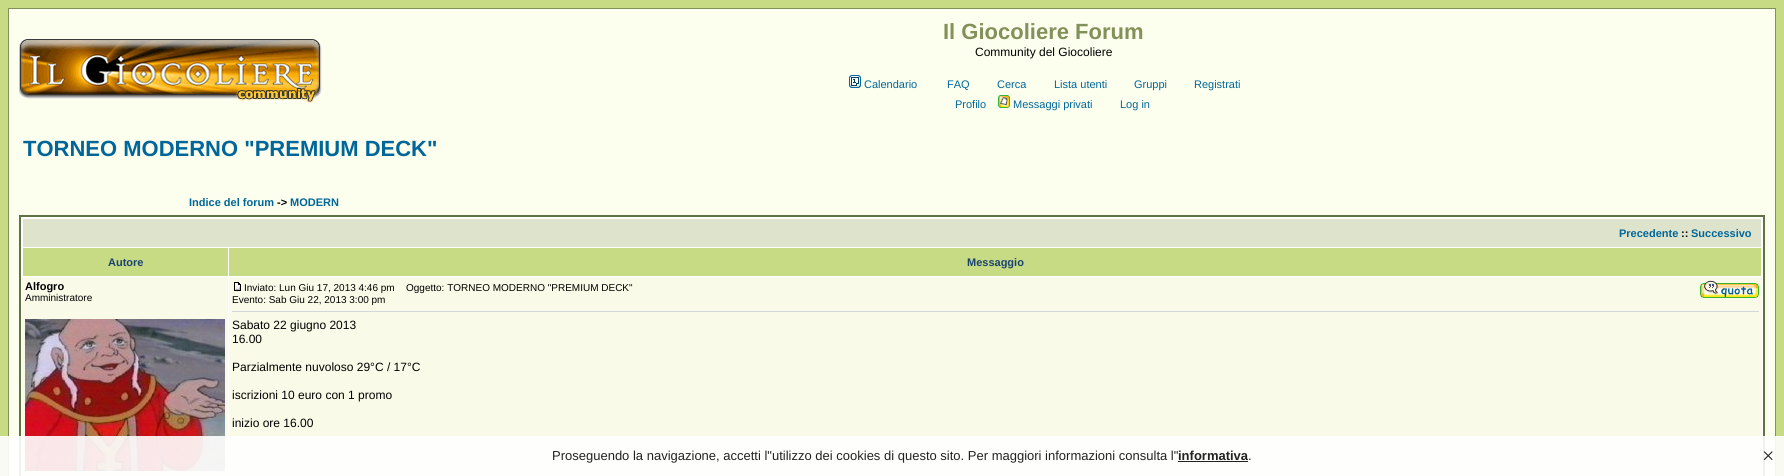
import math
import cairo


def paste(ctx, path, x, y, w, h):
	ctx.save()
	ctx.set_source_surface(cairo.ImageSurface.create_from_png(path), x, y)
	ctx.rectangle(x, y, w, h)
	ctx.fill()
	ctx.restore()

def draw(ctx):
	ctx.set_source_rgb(0.776, 0.859, 0.518)
	ctx.paint()
	ctx.set_source_rgb(0.992, 1, 0.933)
	ctx.rectangle(8.5, 8.5, 1767, 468)
	ctx.fill_preserve()
	ctx.set_source_rgb(0.51, 0.569, 0.353)
	ctx.set_line_width(1)
	ctx.stroke()
	paste(ctx, 'media/1.png', 19, 39, 303, 64)
	ctx.select_font_face('Liberation Sans', cairo.FONT_SLANT_NORMAL, cairo.FONT_WEIGHT_BOLD)
	ctx.set_font_size(22)
	ctx.move_to(943, 39)
	ctx.show_text('Il Giocoliere Forum')
	ctx.select_font_face('Liberation Sans')
	ctx.set_font_size(12)
	ctx.set_source_rgb(0, 0, 0)
	ctx.move_to(975, 56)
	ctx.show_text('Community del Giocoliere')
	paste(ctx, 'media/2.png', 849, 75, 12, 13)
	ctx.set_font_size(11)
	ctx.set_source_rgb(0, 0.4, 0.6)
	for x, y, s in [
		(864, 88, 'Calendario'),
		(947, 88, 'FAQ'),
		(997, 88, 'Cerca'),
		(1054, 88, 'Lista utenti'),
		(1134, 88, 'Gruppi'),
		(1194, 88, 'Registrati'),
		(955, 108, 'Profilo'),
	]:
		ctx.move_to(x, y)
		ctx.show_text(s)
	paste(ctx, 'media/3.png', 998, 95, 12, 13)
	ctx.move_to(1013, 108)
	ctx.show_text('Messaggi privati')
	ctx.move_to(1120, 108)
	ctx.show_text('Log in')
	ctx.select_font_face('Liberation Sans', cairo.FONT_SLANT_NORMAL, cairo.FONT_WEIGHT_BOLD)
	ctx.set_font_size(22)
	ctx.move_to(23, 156)
	ctx.show_text('TORNEO MODERNO "PREMIUM DECK"')
	ctx.set_font_size(11)
	ctx.move_to(189, 206)
	ctx.show_text('Indice del forum')
	ctx.set_source_rgb(0, 0, 0)
	ctx.move_to(277, 206)
	ctx.show_text('->')
	ctx.set_source_rgb(0, 0.4, 0.6)
	ctx.move_to(290, 206)
	ctx.show_text('MODERN')
	ctx.set_source_rgb(1, 1, 1)
	ctx.rectangle(20, 216, 1744, 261)
	ctx.fill_preserve()
	ctx.set_source_rgb(0.373, 0.451, 0.278)
	ctx.set_line_width(2)
	ctx.stroke()
	ctx.set_source_rgb(0.871, 0.89, 0.8)
	ctx.rectangle(23, 219, 1738, 28)
	ctx.fill()
	ctx.set_source_rgb(0, 0.4, 0.6)
	ctx.move_to(1619, 237)
	ctx.show_text('Precedente')
	ctx.set_source_rgb(0, 0, 0)
	ctx.move_to(1681, 237)
	ctx.show_text('::')
	ctx.set_source_rgb(0, 0.4, 0.6)
	ctx.move_to(1691, 237)
	ctx.show_text('Successivo')
	ctx.set_source_rgb(0.776, 0.859, 0.518)
	ctx.rectangle(23, 248, 205, 28)
	ctx.fill()
	ctx.set_source_rgb(0.106, 0.263, 0.439)
	ctx.move_to(108, 266)
	ctx.show_text('Autore')
	ctx.set_source_rgb(0.776, 0.859, 0.518)
	ctx.rectangle(229, 248, 1532, 28)
	ctx.fill()
	ctx.set_source_rgb(0.106, 0.263, 0.439)
	ctx.move_to(967, 266)
	ctx.show_text('Messaggio')
	ctx.set_source_rgb(0.973, 0.984, 0.91)
	ctx.rectangle(22, 277, 206, 199)
	ctx.fill()
	ctx.set_source_rgb(0, 0, 0)
	ctx.move_to(25, 290)
	ctx.show_text('Alfogro')
	ctx.select_font_face('Liberation Sans')
	ctx.set_font_size(10)
	ctx.move_to(25, 301)
	ctx.show_text('Amministratore')
	paste(ctx, 'media/4.png', 25, 319, 200, 152)
	ctx.set_source_rgb(0.973, 0.984, 0.91)
	ctx.rectangle(229, 277, 1533, 199)
	ctx.fill()
	paste(ctx, 'media/5.png', 234, 282, 7, 9)
	ctx.set_source_rgb(0, 0, 0)
	for x, y, s in [
		(244, 291, 'Inviato: Lun Giu 17, 2013 4:46 pm'),
		(406, 291, 'Oggetto: TORNEO MODERNO "PREMIUM DECK"'),
		(232, 303, 'Evento: Sab Giu 22, 2013 3:00 pm'),
	]:
		ctx.move_to(x, y)
		ctx.show_text(s)
	paste(ctx, 'media/6.png', 1700, 280, 59, 18)
	ctx.set_source_rgb(0.82, 0.843, 0.863)
	ctx.rectangle(232, 311, 1527, 1)
	ctx.fill()
	ctx.set_font_size(12)
	ctx.set_source_rgb(0, 0, 0)
	for x, y, s in [
		(232, 329, 'Sabato 22 giugno 2013'),
		(232, 343, '16.00'),
		(232, 371, 'Parzialmente nuvoloso 29°C / 17°C'),
		(232, 399, 'iscrizioni 10 euro con 1 promo'),
		(232, 427, 'inizio ore 16.00'),
	]:
		ctx.move_to(x, y)
		ctx.show_text(s)
	ctx.set_source_rgba(1, 1, 1, 0.9)
	ctx.rectangle(0, 436, 1784, 40)
	ctx.fill()
	ctx.set_font_size(13)
	ctx.set_source_rgb(0.133, 0.133, 0.133)
	ctx.move_to(552, 460)
	ctx.show_text('Proseguendo la navigazione, accetti l"utilizzo dei cookies di questo sito. Per maggiori informazioni consulta l"')
	ctx.select_font_face('Liberation Sans', cairo.FONT_SLANT_NORMAL, cairo.FONT_WEIGHT_BOLD)
	ctx.move_to(1178, 460)
	ctx.show_text('informativa')
	ctx.rectangle(1178, 461, 70, 1)
	ctx.fill()
	ctx.select_font_face('Liberation Sans')
	ctx.move_to(1248, 460)
	ctx.show_text('.')
	ctx.select_font_face('Liberation Serif')
	ctx.set_font_size(22)
	ctx.move_to(1762, 463)
	ctx.show_text('×')


surface = cairo.ImageSurface(cairo.FORMAT_RGB24, 1784, 476)
ctx = cairo.Context(surface)
options = cairo.FontOptions()
options.set_hint_metrics(cairo.HINT_METRICS_OFF)
options.set_hint_style(cairo.HINT_STYLE_NONE)
ctx.set_font_options(options)
ctx.set_miter_limit(4)
draw(ctx)
surface.write_to_png('image.png')
